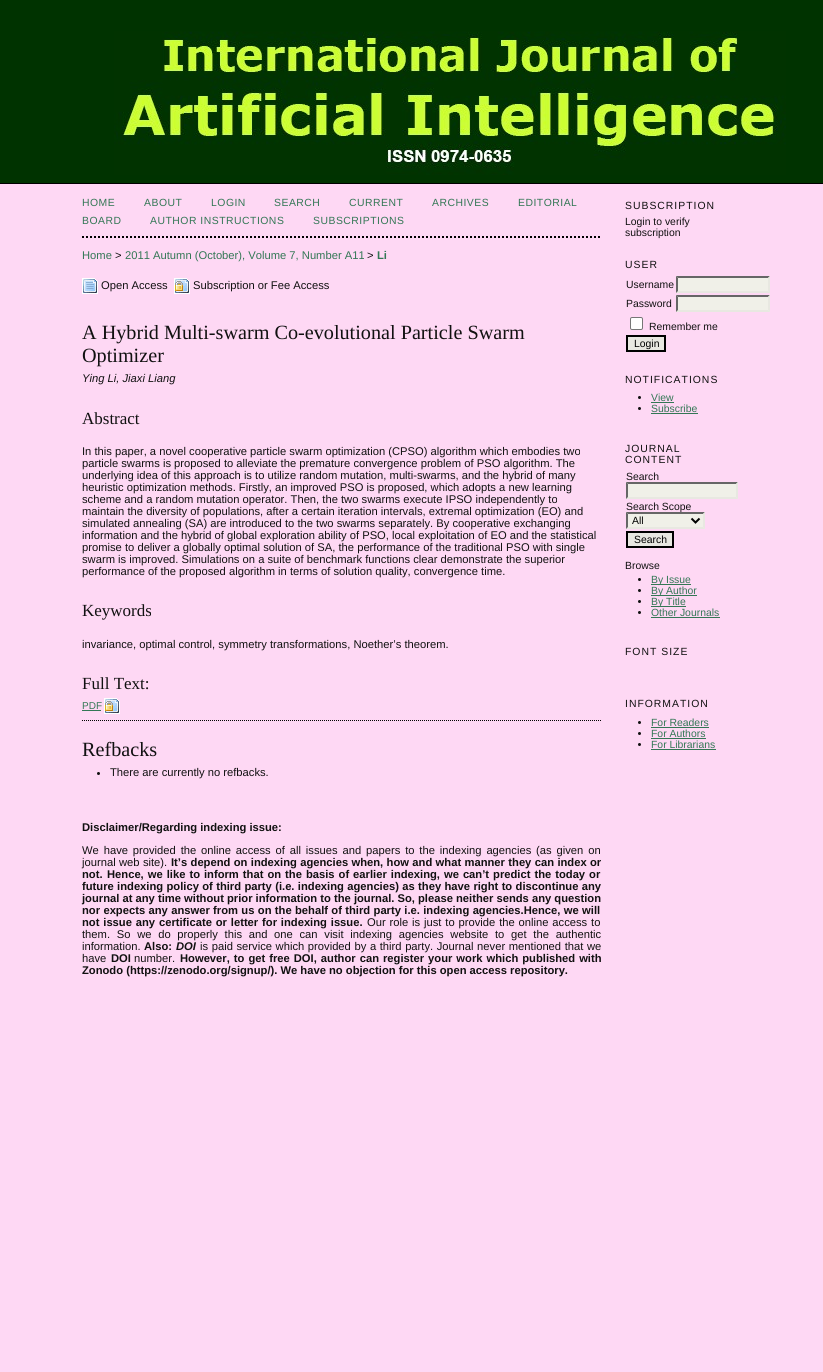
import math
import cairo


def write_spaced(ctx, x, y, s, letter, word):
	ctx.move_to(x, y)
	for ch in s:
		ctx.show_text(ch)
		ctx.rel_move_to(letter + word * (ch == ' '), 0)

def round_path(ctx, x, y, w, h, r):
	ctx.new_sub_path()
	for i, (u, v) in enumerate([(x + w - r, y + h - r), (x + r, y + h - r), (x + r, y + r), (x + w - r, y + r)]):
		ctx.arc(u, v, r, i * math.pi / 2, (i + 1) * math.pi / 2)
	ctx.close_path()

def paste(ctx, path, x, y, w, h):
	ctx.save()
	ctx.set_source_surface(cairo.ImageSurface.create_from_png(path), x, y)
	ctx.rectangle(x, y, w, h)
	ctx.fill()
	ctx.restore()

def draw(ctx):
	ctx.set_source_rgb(0.996, 0.847, 0.957)
	ctx.paint()
	ctx.set_source_rgb(0, 0.2, 0)
	ctx.rectangle(0, 0, 823, 183)
	ctx.fill()
	ctx.set_source_rgb(0, 0, 0)
	ctx.rectangle(0, 183, 823, 1)
	ctx.fill()
	paste(ctx, 'media/1.png', 114, 31, 672, 144)
	ctx.new_path()
	ctx.move_to(82, 237)
	ctx.line_to(601, 237)
	ctx.set_dash([2, 2])
	ctx.stroke()
	ctx.select_font_face('Liberation Sans')
	ctx.set_font_size(10.4)
	ctx.set_source_rgb(0.2, 0.467, 0.333)
	for x, y, s in [
		(82, 206, 'HOME'),
		(144, 206, 'ABOUT'),
		(211, 206, 'LOGIN'),
		(274, 206, 'SEARCH'),
		(349, 206, 'CURRENT'),
		(432, 206, 'ARCHIVES'),
		(518, 206, 'EDITORIAL'),
		(82, 224, 'BOARD'),
		(150, 224, 'AUTHOR INSTRUCTIONS'),
		(313, 224, 'SUBSCRIPTIONS'),
	]:
		write_spaced(ctx, x, y, s, 0.5, 0)
	ctx.set_font_size(11.2)
	ctx.move_to(82, 259)
	ctx.show_text('Home')
	ctx.set_source_rgb(0.067, 0.067, 0.067)
	ctx.move_to(115, 259)
	ctx.show_text('>')
	ctx.set_source_rgb(0.2, 0.467, 0.333)
	ctx.move_to(125, 259)
	ctx.show_text('2011 Autumn (October), Volume 7, Number A11')
	ctx.set_source_rgb(0.067, 0.067, 0.067)
	ctx.move_to(367, 259)
	ctx.show_text('>')
	ctx.select_font_face('Liberation Sans', cairo.FONT_SLANT_NORMAL, cairo.FONT_WEIGHT_BOLD)
	ctx.set_source_rgb(0.2, 0.467, 0.333)
	ctx.move_to(377, 259)
	ctx.show_text('Li')
	paste(ctx, 'media/2.png', 82, 278, 16, 16)
	ctx.select_font_face('Liberation Sans')
	ctx.set_source_rgb(0.067, 0.067, 0.067)
	ctx.move_to(101, 289)
	ctx.show_text('Open Access')
	paste(ctx, 'media/3.png', 174, 278, 16, 16)
	ctx.move_to(193, 289)
	ctx.show_text('Subscription or Fee Access')
	ctx.select_font_face('Liberation Serif')
	ctx.set_font_size(20.2)
	ctx.move_to(82, 339)
	ctx.show_text('A Hybrid Multi-swarm Co-evolutional Particle Swarm')
	ctx.move_to(82, 362)
	ctx.show_text('Optimizer')
	ctx.select_font_face('Liberation Sans', cairo.FONT_SLANT_ITALIC)
	ctx.set_font_size(11.2)
	ctx.move_to(82, 382)
	ctx.show_text('Ying Li, Jiaxi Liang')
	ctx.select_font_face('Liberation Serif')
	ctx.set_font_size(17)
	ctx.move_to(82, 424)
	ctx.show_text('Abstract')
	ctx.select_font_face('Liberation Sans')
	ctx.set_font_size(11.2)
	for x, y, s in [
		(82, 455, 'In this paper, a novel cooperative particle swarm optimization (CPSO) algorithm which embodies two'),
		(82, 467, 'particle swarms is proposed to alleviate the premature convergence problem of PSO algorithm. The'),
		(82, 479, 'underlying idea of this approach is to utilize random mutation, multi-swarms, and the hybrid of many'),
		(82, 491, 'heuristic optimization methods. Firstly, an improved PSO is proposed, which adopts a new learning'),
		(82, 503, 'scheme and a random mutation operator. Then, the two swarms execute IPSO independently to'),
		(82, 515, 'maintain the diversity of populations, after a certain iteration intervals, extremal optimization (EO) and'),
		(82, 527, 'simulated annealing (SA) are introduced to the two swarms separately. By cooperative exchanging'),
		(82, 539, 'information and the hybrid of global exploration ability of PSO, local exploitation of EO and the statistical'),
		(82, 551, 'promise to deliver a globally optimal solution of SA, the performance of the traditional PSO with single'),
		(82, 563, 'swarm is improved. Simulations on a suite of benchmark functions clear demonstrate the superior'),
		(82, 575, 'performance of the proposed algorithm in terms of solution quality, convergence time.'),
	]:
		ctx.move_to(x, y)
		ctx.show_text(s)
	ctx.select_font_face('Liberation Serif')
	ctx.set_font_size(17)
	ctx.move_to(82, 616)
	ctx.show_text('Keywords')
	ctx.select_font_face('Liberation Sans')
	ctx.set_font_size(11.2)
	ctx.move_to(82, 648)
	ctx.show_text('invariance, optimal control, symmetry transformations, Noether’s theorem.')
	ctx.select_font_face('Liberation Serif')
	ctx.set_font_size(17)
	ctx.move_to(82, 689)
	ctx.show_text('Full Text:')
	ctx.select_font_face('Liberation Sans')
	ctx.set_font_size(10)
	ctx.set_source_rgb(0.2, 0.467, 0.333)
	ctx.move_to(82, 709)
	ctx.show_text('PDF')
	ctx.rectangle(82, 710, 19, 1)
	ctx.fill()
	paste(ctx, 'media/3.png', 104, 698, 16, 16)
	ctx.new_path()
	ctx.move_to(82, 720.5)
	ctx.line_to(601, 720.5)
	ctx.set_source_rgb(0, 0, 0)
	ctx.set_line_width(1)
	ctx.set_dash([1, 1])
	ctx.stroke()
	ctx.select_font_face('Liberation Serif')
	ctx.set_font_size(20.2)
	ctx.set_source_rgb(0.067, 0.067, 0.067)
	ctx.move_to(82, 756)
	ctx.show_text('Refbacks')
	ctx.new_path()
	ctx.arc(98.5, 773.5, 1.5, 0, 2 * math.pi)
	ctx.fill()
	ctx.select_font_face('Liberation Sans')
	ctx.set_font_size(11.2)
	ctx.move_to(110, 776)
	ctx.show_text('There are currently no refbacks.')
	ctx.select_font_face('Liberation Sans', cairo.FONT_SLANT_NORMAL, cairo.FONT_WEIGHT_BOLD)
	ctx.move_to(82, 831)
	ctx.show_text('Disclaimer/Regarding indexing issue:')
	ctx.select_font_face('Liberation Sans')
	write_spaced(ctx, 82, 854, 'We have provided the online access of all issues and papers to the indexing agencies (as given on', 0, 1.75)
	write_spaced(ctx, 82, 866, 'journal web site).', 0, 0.25)
	ctx.select_font_face('Liberation Sans', cairo.FONT_SLANT_NORMAL, cairo.FONT_WEIGHT_BOLD)
	write_spaced(ctx, 171, 866, 'It’s depend on indexing agencies when, how and what manner they can index or', 0, 0.25)
	ctx.move_to(82, 878)
	ctx.show_text('not.')
	write_spaced(ctx, 107, 878, 'Hence, we like to inform that on the basis of earlier indexing, we can’t predict the today or', 0, 0.9)
	write_spaced(ctx, 82, 890, 'future indexing policy of third party (i.e. indexing agencies) as they have right to discontinue any', 0, 0.25)
	ctx.move_to(82, 902)
	ctx.show_text('journal at any time without prior information to the journal. So, please neither sends any question')
	write_spaced(ctx, 82, 914, 'nor expects any answer from us on the behalf of third party i.e. indexing agencies.Hence, we will', 0, 0.25)
	write_spaced(ctx, 82, 926, 'not issue any certificate or letter for indexing issue.', 0, 0.75)
	ctx.select_font_face('Liberation Sans')
	write_spaced(ctx, 367, 926, 'Our role is just to provide the online access to', 0, 0.75)
	write_spaced(ctx, 82, 938, 'them. So we do properly this and one can visit indexing agencies website to get the authentic', 0, 3.6)
	ctx.move_to(82, 950)
	ctx.show_text('information.')
	ctx.select_font_face('Liberation Sans', cairo.FONT_SLANT_NORMAL, cairo.FONT_WEIGHT_BOLD)
	ctx.move_to(144, 950)
	ctx.show_text('Also:')
	ctx.select_font_face('Liberation Sans', cairo.FONT_SLANT_ITALIC, cairo.FONT_WEIGHT_BOLD)
	ctx.move_to(176, 950)
	ctx.show_text('DOI')
	ctx.select_font_face('Liberation Sans')
	write_spaced(ctx, 200, 950, 'is paid service which provided by a third party. Journal never mentioned that we', 0, 0.5)
	ctx.move_to(82, 962)
	ctx.show_text('have')
	ctx.select_font_face('Liberation Sans', cairo.FONT_SLANT_NORMAL, cairo.FONT_WEIGHT_BOLD)
	ctx.move_to(111, 962)
	ctx.show_text('DOI')
	ctx.select_font_face('Liberation Sans')
	ctx.move_to(134, 962)
	ctx.show_text('number.')
	ctx.select_font_face('Liberation Sans', cairo.FONT_SLANT_NORMAL, cairo.FONT_WEIGHT_BOLD)
	write_spaced(ctx, 180, 962, 'However, to get free DOI, author can register your work which published with', 0, 0.9)
	ctx.move_to(82, 974)
	ctx.show_text('Zonodo (https://zenodo.org/signup/). We have no objection for this open access repository.')
	ctx.select_font_face('Liberation Sans')
	ctx.set_font_size(10.4)
	write_spaced(ctx, 625, 209, 'SUBSCRIPTION', 1, 0)
	ctx.move_to(625, 225)
	ctx.show_text('Login to verify')
	ctx.move_to(625, 236)
	ctx.show_text('subscription')
	write_spaced(ctx, 625, 268, 'USER', 1, 0)
	ctx.move_to(626, 288)
	ctx.show_text('Username')
	ctx.set_source_rgb(0.941, 0.941, 0.91)
	ctx.rectangle(676, 276, 94, 17)
	ctx.fill()
	ctx.set_source_rgb(0.4, 0.4, 0.4)
	ctx.new_path()
	ctx.move_to(676, 276)
	ctx.line_to(770, 276)
	ctx.line_to(768, 278)
	ctx.line_to(678, 278)
	ctx.close_path()
	ctx.fill()
	ctx.set_source_rgb(0.91, 0.91, 0.882)
	ctx.new_path()
	ctx.move_to(770, 276)
	ctx.line_to(770, 293)
	ctx.line_to(768, 291)
	ctx.line_to(768, 278)
	ctx.close_path()
	ctx.fill()
	ctx.new_path()
	ctx.move_to(770, 293)
	ctx.line_to(676, 293)
	ctx.line_to(678, 291)
	ctx.line_to(768, 291)
	ctx.close_path()
	ctx.fill()
	ctx.set_source_rgb(0.4, 0.4, 0.4)
	ctx.new_path()
	ctx.move_to(676, 293)
	ctx.line_to(676, 276)
	ctx.line_to(678, 278)
	ctx.line_to(678, 291)
	ctx.close_path()
	ctx.fill()
	ctx.set_source_rgb(0.067, 0.067, 0.067)
	ctx.move_to(626, 307)
	ctx.show_text('Password')
	ctx.set_source_rgb(0.941, 0.941, 0.91)
	ctx.rectangle(676, 295, 94, 17)
	ctx.fill()
	ctx.set_source_rgb(0.4, 0.4, 0.4)
	ctx.new_path()
	ctx.move_to(676, 295)
	ctx.line_to(770, 295)
	ctx.line_to(768, 297)
	ctx.line_to(678, 297)
	ctx.close_path()
	ctx.fill()
	ctx.set_source_rgb(0.91, 0.91, 0.882)
	ctx.new_path()
	ctx.move_to(770, 295)
	ctx.line_to(770, 312)
	ctx.line_to(768, 310)
	ctx.line_to(768, 297)
	ctx.close_path()
	ctx.fill()
	ctx.new_path()
	ctx.move_to(770, 312)
	ctx.line_to(676, 312)
	ctx.line_to(678, 310)
	ctx.line_to(768, 310)
	ctx.close_path()
	ctx.fill()
	ctx.set_source_rgb(0.4, 0.4, 0.4)
	ctx.new_path()
	ctx.move_to(676, 312)
	ctx.line_to(676, 295)
	ctx.line_to(678, 297)
	ctx.line_to(678, 310)
	ctx.close_path()
	ctx.fill()
	ctx.set_source_rgb(1, 1, 1)
	round_path(ctx, 630.5, 317.5, 12, 12, 1.5)
	ctx.fill_preserve()
	ctx.set_source_rgb(0.463, 0.463, 0.463)
	ctx.set_dash([])
	ctx.stroke()
	ctx.set_source_rgb(0.067, 0.067, 0.067)
	ctx.move_to(649, 330)
	ctx.show_text('Remember me')
	ctx.set_source_rgb(0.91, 0.91, 0.882)
	ctx.rectangle(627, 336, 38, 15)
	ctx.fill_preserve()
	ctx.set_source_rgb(0, 0, 0)
	ctx.set_line_width(2)
	ctx.stroke()
	ctx.move_to(634, 347)
	ctx.show_text('Login')
	ctx.set_source_rgb(0.067, 0.067, 0.067)
	write_spaced(ctx, 625, 383, 'NOTIFICATIONS', 1, 0)
	ctx.new_path()
	ctx.arc(639.5, 397.5, 1.5, 0, 2 * math.pi)
	ctx.fill()
	ctx.set_source_rgb(0.2, 0.467, 0.333)
	ctx.move_to(651, 401)
	ctx.show_text('View')
	ctx.rectangle(651, 402, 23, 1)
	ctx.fill()
	ctx.set_source_rgb(0.067, 0.067, 0.067)
	ctx.arc(639.5, 408.5, 1.5, 0, 2 * math.pi)
	ctx.fill()
	ctx.set_source_rgb(0.2, 0.467, 0.333)
	ctx.move_to(651, 412)
	ctx.show_text('Subscribe')
	ctx.rectangle(651, 413, 47, 1)
	ctx.fill()
	ctx.set_source_rgb(0.067, 0.067, 0.067)
	write_spaced(ctx, 625, 452, 'JOURNAL', 1, 0)
	write_spaced(ctx, 625, 463, 'CONTENT', 1, 0)
	ctx.move_to(626, 480)
	ctx.show_text('Search')
	ctx.set_source_rgb(0.941, 0.941, 0.91)
	ctx.rectangle(626, 482, 112, 17)
	ctx.fill()
	ctx.set_source_rgb(0.4, 0.4, 0.4)
	ctx.new_path()
	ctx.move_to(626, 482)
	ctx.line_to(738, 482)
	ctx.line_to(736, 484)
	ctx.line_to(628, 484)
	ctx.close_path()
	ctx.fill()
	ctx.set_source_rgb(0.91, 0.91, 0.882)
	ctx.new_path()
	ctx.move_to(738, 482)
	ctx.line_to(738, 499)
	ctx.line_to(736, 497)
	ctx.line_to(736, 484)
	ctx.close_path()
	ctx.fill()
	ctx.new_path()
	ctx.move_to(738, 499)
	ctx.line_to(626, 499)
	ctx.line_to(628, 497)
	ctx.line_to(736, 497)
	ctx.close_path()
	ctx.fill()
	ctx.set_source_rgb(0.4, 0.4, 0.4)
	ctx.new_path()
	ctx.move_to(626, 499)
	ctx.line_to(626, 482)
	ctx.line_to(628, 484)
	ctx.line_to(628, 497)
	ctx.close_path()
	ctx.fill()
	ctx.set_source_rgb(0.067, 0.067, 0.067)
	ctx.move_to(626, 510)
	ctx.show_text('Search Scope')
	ctx.set_source_rgb(0.941, 0.941, 0.91)
	ctx.rectangle(626, 512, 79, 17)
	ctx.fill()
	ctx.set_source_rgb(0.4, 0.4, 0.4)
	ctx.new_path()
	ctx.move_to(626, 512)
	ctx.line_to(705, 512)
	ctx.line_to(703, 514)
	ctx.line_to(628, 514)
	ctx.close_path()
	ctx.fill()
	ctx.set_source_rgb(0.91, 0.91, 0.882)
	ctx.new_path()
	ctx.move_to(705, 512)
	ctx.line_to(705, 529)
	ctx.line_to(703, 527)
	ctx.line_to(703, 514)
	ctx.close_path()
	ctx.fill()
	ctx.new_path()
	ctx.move_to(705, 529)
	ctx.line_to(626, 529)
	ctx.line_to(628, 527)
	ctx.line_to(703, 527)
	ctx.close_path()
	ctx.fill()
	ctx.set_source_rgb(0.4, 0.4, 0.4)
	ctx.new_path()
	ctx.move_to(626, 529)
	ctx.line_to(626, 512)
	ctx.line_to(628, 514)
	ctx.line_to(628, 527)
	ctx.close_path()
	ctx.fill()
	ctx.new_path()
	ctx.move_to(691.5, 518.5)
	ctx.line_to(695.5, 522.5)
	ctx.line_to(699.5, 518.5)
	ctx.set_source_rgb(0, 0, 0)
	ctx.stroke()
	ctx.move_to(632, 524)
	ctx.show_text('All')
	ctx.set_source_rgb(0.91, 0.91, 0.882)
	ctx.rectangle(627, 532, 46, 15)
	ctx.fill_preserve()
	ctx.set_source_rgb(0, 0, 0)
	ctx.stroke()
	ctx.move_to(634, 543)
	ctx.show_text('Search')
	ctx.set_source_rgb(0.067, 0.067, 0.067)
	ctx.move_to(625, 569)
	ctx.show_text('Browse')
	ctx.new_path()
	ctx.arc(639.5, 579.5, 1.5, 0, 2 * math.pi)
	ctx.fill()
	ctx.set_source_rgb(0.2, 0.467, 0.333)
	ctx.rectangle(651, 584, 40, 1)
	ctx.fill()
	ctx.move_to(651, 583)
	ctx.show_text('By Issue')
	ctx.set_source_rgb(0.067, 0.067, 0.067)
	ctx.new_path()
	ctx.arc(639.5, 590.5, 1.5, 0, 2 * math.pi)
	ctx.fill()
	ctx.set_source_rgb(0.2, 0.467, 0.333)
	ctx.rectangle(651, 595, 46, 1)
	ctx.fill()
	ctx.move_to(651, 594)
	ctx.show_text('By Author')
	ctx.set_source_rgb(0.067, 0.067, 0.067)
	ctx.new_path()
	ctx.arc(639.5, 601.5, 1.5, 0, 2 * math.pi)
	ctx.fill()
	ctx.set_source_rgb(0.2, 0.467, 0.333)
	ctx.rectangle(651, 606, 35, 1)
	ctx.fill()
	ctx.move_to(651, 605)
	ctx.show_text('By Title')
	ctx.set_source_rgb(0.067, 0.067, 0.067)
	ctx.new_path()
	ctx.arc(639.5, 612.5, 1.5, 0, 2 * math.pi)
	ctx.fill()
	ctx.set_source_rgb(0.2, 0.467, 0.333)
	ctx.move_to(651, 616)
	ctx.show_text('Other Journals')
	ctx.rectangle(651, 617, 69, 1)
	ctx.fill()
	ctx.set_source_rgb(0.067, 0.067, 0.067)
	write_spaced(ctx, 625, 655, 'FONT SIZE', 1, 0)
	write_spaced(ctx, 625, 707, 'INFORMATION', 1, 0)
	ctx.new_path()
	ctx.arc(639.5, 722.5, 1.5, 0, 2 * math.pi)
	ctx.fill()
	ctx.set_source_rgb(0.2, 0.467, 0.333)
	ctx.move_to(651, 726)
	ctx.show_text('For Readers')
	ctx.rectangle(651, 727, 58, 1)
	ctx.fill()
	ctx.set_source_rgb(0.067, 0.067, 0.067)
	ctx.arc(639.5, 733.5, 1.5, 0, 2 * math.pi)
	ctx.fill()
	ctx.set_source_rgb(0.2, 0.467, 0.333)
	ctx.move_to(651, 737)
	ctx.show_text('For Authors')
	ctx.rectangle(651, 738, 55, 1)
	ctx.fill()
	ctx.set_source_rgb(0.067, 0.067, 0.067)
	ctx.arc(639.5, 744.5, 1.5, 0, 2 * math.pi)
	ctx.fill()
	ctx.set_source_rgb(0.2, 0.467, 0.333)
	ctx.move_to(651, 748)
	ctx.show_text('For Librarians')
	ctx.rectangle(651, 749, 65, 1)
	ctx.fill()


surface = cairo.ImageSurface(cairo.FORMAT_RGB24, 823, 1372)
ctx = cairo.Context(surface)
options = cairo.FontOptions()
options.set_hint_metrics(cairo.HINT_METRICS_OFF)
options.set_hint_style(cairo.HINT_STYLE_NONE)
ctx.set_font_options(options)
ctx.set_miter_limit(4)
draw(ctx)
surface.write_to_png('image.png')
